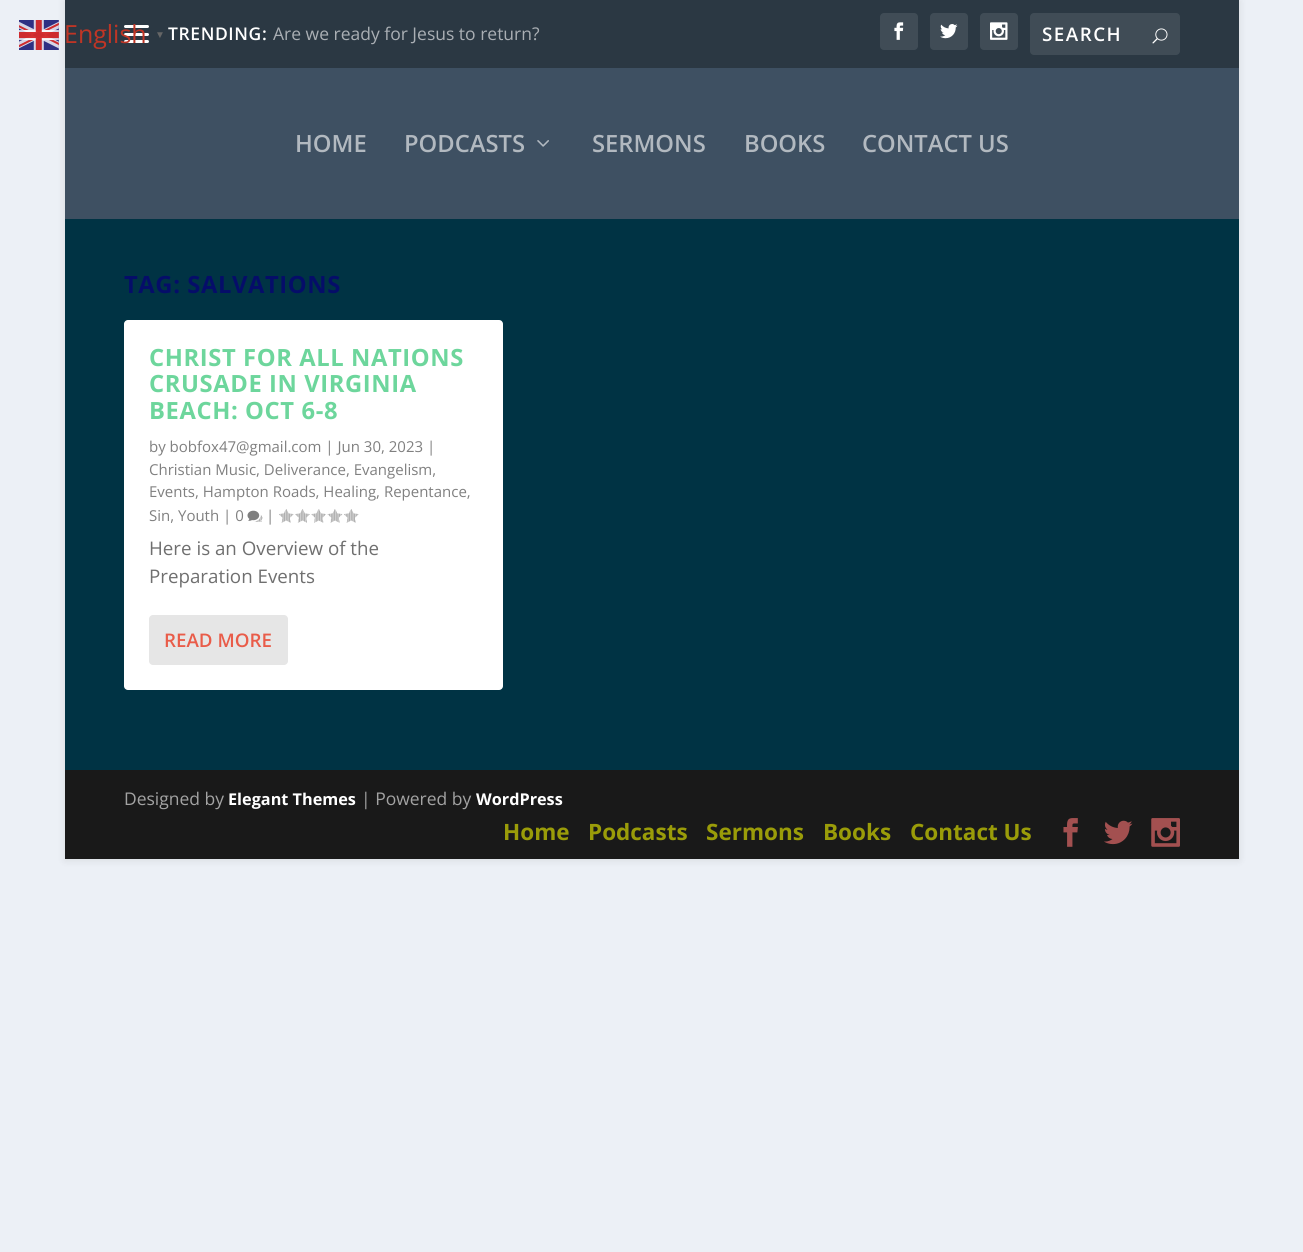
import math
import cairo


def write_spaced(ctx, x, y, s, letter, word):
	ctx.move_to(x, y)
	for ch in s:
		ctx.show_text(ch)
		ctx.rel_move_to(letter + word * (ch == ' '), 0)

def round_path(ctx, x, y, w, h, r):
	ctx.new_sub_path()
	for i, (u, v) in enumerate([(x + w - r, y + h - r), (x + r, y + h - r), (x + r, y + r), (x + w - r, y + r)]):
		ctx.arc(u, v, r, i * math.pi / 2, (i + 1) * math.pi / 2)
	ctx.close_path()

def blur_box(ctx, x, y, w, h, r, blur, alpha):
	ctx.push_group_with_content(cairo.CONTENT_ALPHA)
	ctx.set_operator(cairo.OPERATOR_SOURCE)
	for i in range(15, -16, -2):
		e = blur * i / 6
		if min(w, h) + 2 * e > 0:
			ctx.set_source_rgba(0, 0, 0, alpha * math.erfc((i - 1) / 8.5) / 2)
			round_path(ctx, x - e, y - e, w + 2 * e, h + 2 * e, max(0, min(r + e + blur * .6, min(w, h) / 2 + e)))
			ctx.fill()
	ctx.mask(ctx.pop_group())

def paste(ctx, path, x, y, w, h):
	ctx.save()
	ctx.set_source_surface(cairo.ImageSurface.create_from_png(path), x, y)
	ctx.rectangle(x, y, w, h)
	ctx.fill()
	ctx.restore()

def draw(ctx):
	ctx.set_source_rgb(0.925, 0.941, 0.961)
	ctx.paint()
	ctx.set_source_rgb(0, 0, 0)
	blur_box(ctx, 65, 1, 1174, 859, 0, 4, 0.1)
	paste(ctx, 'media/1.png', 19, 20, 40, 30)
	ctx.set_source_rgb(0.169, 0.22, 0.263)
	ctx.rectangle(65, 0, 1174, 68)
	ctx.fill()
	ctx.set_source_rgb(1, 1, 1)
	round_path(ctx, 124, 25, 25, 3, 1.5)
	ctx.fill()
	round_path(ctx, 124, 33, 25, 3, 1.5)
	ctx.fill()
	round_path(ctx, 124, 40, 25, 3, 1.5)
	ctx.fill()
	ctx.select_font_face('Open Sans')
	ctx.set_font_size(25)
	ctx.set_source_rgb(0.749, 0.208, 0.145)
	ctx.move_to(64, 43)
	ctx.show_text('English')
	ctx.select_font_face('Liberation Sans', cairo.FONT_SLANT_NORMAL, cairo.FONT_WEIGHT_BOLD)
	ctx.set_font_size(10)
	ctx.set_source_rgb(0.4, 0.4, 0.4)
	ctx.move_to(155, 38)
	ctx.show_text('▼')
	ctx.set_source_rgb(0, 0.2, 0.267)
	ctx.rectangle(65, 219, 1174, 551)
	ctx.fill()
	ctx.select_font_face('Open Sans SemiBold')
	ctx.set_font_size(17.5)
	ctx.set_source_rgb(1, 1, 1)
	write_spaced(ctx, 168, 40, 'TRENDING:', 0.6, 0)
	ctx.select_font_face('Open Sans')
	ctx.set_source_rgb(0.667, 0.686, 0.706)
	ctx.move_to(273, 40)
	ctx.show_text('Are we ready for Jesus to return?')
	ctx.set_source_rgb(0.251, 0.298, 0.337)
	round_path(ctx, 880, 13, 38, 37, 4)
	ctx.fill()
	paste(ctx, 'media/2.png', 894, 22, 10, 18)
	round_path(ctx, 930, 13, 38, 37, 4)
	ctx.fill()
	paste(ctx, 'media/3.png', 940, 24, 18, 15)
	round_path(ctx, 980, 13, 38, 37, 4)
	ctx.fill()
	paste(ctx, 'media/4.png', 990, 22, 18, 18)
	round_path(ctx, 1030, 13, 150, 42, 4)
	ctx.fill()
	ctx.select_font_face('Open Sans SemiBold')
	ctx.set_font_size(18.75)
	ctx.set_source_rgb(1, 1, 1)
	write_spaced(ctx, 1042, 41, 'SEARCH', 1.5, 0)
	paste(ctx, 'media/5.png', 1152, 28, 16, 16)
	ctx.set_source_rgb(0.243, 0.314, 0.384)
	ctx.rectangle(65, 68, 1174, 151)
	ctx.fill()
	ctx.set_font_size(23.75)
	ctx.set_source_rgb(0.698, 0.725, 0.753)
	ctx.move_to(295, 152)
	ctx.show_text('HOME')
	ctx.move_to(404, 152)
	ctx.show_text('PODCASTS')
	paste(ctx, 'media/6.png', 537, 140, 12, 7)
	for x, y, s in [
		(592, 152, 'SERMONS'),
		(744, 152, 'BOOKS'),
		(862, 152, 'CONTACT US'),
	]:
		ctx.move_to(x, y)
		ctx.show_text(s)
	ctx.select_font_face('Open Sans', cairo.FONT_SLANT_NORMAL, cairo.FONT_WEIGHT_BOLD)
	ctx.set_source_rgb(0.02, 0.051, 0.412)
	write_spaced(ctx, 124, 293, 'TAG: SALVATIONS', 0.6, 0)
	ctx.set_source_rgb(1, 1, 1)
	round_path(ctx, 124, 320, 379, 370, 4)
	ctx.fill()
	ctx.set_source_rgb(0.427, 0.839, 0.612)
	for x, y, s in [
		(149, 366, 'CHRIST FOR ALL NATIONS'),
		(149, 392, 'CRUSADE IN VIRGINIA'),
		(149, 419, 'BEACH: OCT 6-8'),
	]:
		write_spaced(ctx, x, y, s, 0.6, 0)
	ctx.select_font_face('Open Sans')
	ctx.set_font_size(15)
	ctx.set_source_rgb(0.502, 0.502, 0.502)
	for x, y, s in [
		(149, 452, 'by bobfox47@gmail.com | Jun 30, 2023 |'),
		(149, 475, 'Christian Music, Deliverance, Evangelism,'),
		(149, 497, 'Events, Hampton Roads, Healing, Repentance,'),
		(149, 521, 'Sin, Youth | 0'),
	]:
		ctx.move_to(x, y)
		ctx.show_text(s)
	paste(ctx, 'media/7.png', 247, 510, 16, 12)
	ctx.move_to(266, 521)
	ctx.show_text('|')
	paste(ctx, 'media/8.png', 279, 509, 15, 14)
	paste(ctx, 'media/9.png', 295, 509, 15, 14)
	paste(ctx, 'media/10.png', 311, 509, 15, 14)
	paste(ctx, 'media/11.png', 327, 509, 16, 14)
	paste(ctx, 'media/8.png', 344, 509, 15, 14)
	ctx.set_font_size(18.75)
	ctx.set_source_rgb(0.435, 0.435, 0.435)
	ctx.move_to(149, 555)
	ctx.show_text('Here is an Overview of the')
	ctx.move_to(149, 583)
	ctx.show_text('Preparation Events')
	ctx.set_source_rgb(0.902, 0.902, 0.902)
	round_path(ctx, 149, 615, 139, 50, 4)
	ctx.fill()
	ctx.select_font_face('Open Sans SemiBold')
	ctx.set_source_rgb(0.914, 0.361, 0.286)
	ctx.move_to(164, 647)
	ctx.show_text('READ MORE')
	ctx.set_source_rgb(0.098, 0.098, 0.098)
	ctx.rectangle(65, 770, 1174, 89)
	ctx.fill()
	ctx.select_font_face('Open Sans')
	ctx.set_font_size(17.5)
	ctx.set_source_rgb(0.639, 0.639, 0.639)
	ctx.move_to(124, 805)
	ctx.show_text('Designed by')
	ctx.select_font_face('Open Sans', cairo.FONT_SLANT_NORMAL, cairo.FONT_WEIGHT_BOLD)
	ctx.set_font_size(16.25)
	ctx.set_source_rgb(1, 1, 1)
	ctx.move_to(228, 805)
	ctx.show_text('Elegant Themes')
	ctx.select_font_face('Open Sans')
	ctx.set_font_size(17.5)
	ctx.set_source_rgb(0.639, 0.639, 0.639)
	ctx.move_to(361, 805)
	ctx.show_text('| Powered by')
	ctx.select_font_face('Open Sans', cairo.FONT_SLANT_NORMAL, cairo.FONT_WEIGHT_BOLD)
	ctx.set_font_size(16.25)
	ctx.set_source_rgb(1, 1, 1)
	ctx.move_to(476, 805)
	ctx.show_text('WordPress')
	ctx.set_font_size(22.5)
	ctx.set_source_rgb(0.604, 0.612, 0.039)
	for x, y, s in [
		(503, 840, 'Home'),
		(588, 840, 'Podcasts'),
		(706, 840, 'Sermons'),
		(823, 840, 'Books'),
		(910, 840, 'Contact Us'),
	]:
		ctx.move_to(x, y)
		ctx.show_text(s)
	paste(ctx, 'media/12.png', 1063, 818, 15, 29)
	paste(ctx, 'media/13.png', 1104, 820, 29, 25)
	paste(ctx, 'media/14.png', 1151, 818, 29, 29)


surface = cairo.ImageSurface(cairo.FORMAT_RGB24, 1303, 1252)
ctx = cairo.Context(surface)
options = cairo.FontOptions()
options.set_hint_metrics(cairo.HINT_METRICS_OFF)
options.set_hint_style(cairo.HINT_STYLE_NONE)
ctx.set_font_options(options)
ctx.set_miter_limit(4)
draw(ctx)
surface.write_to_png('image.png')
